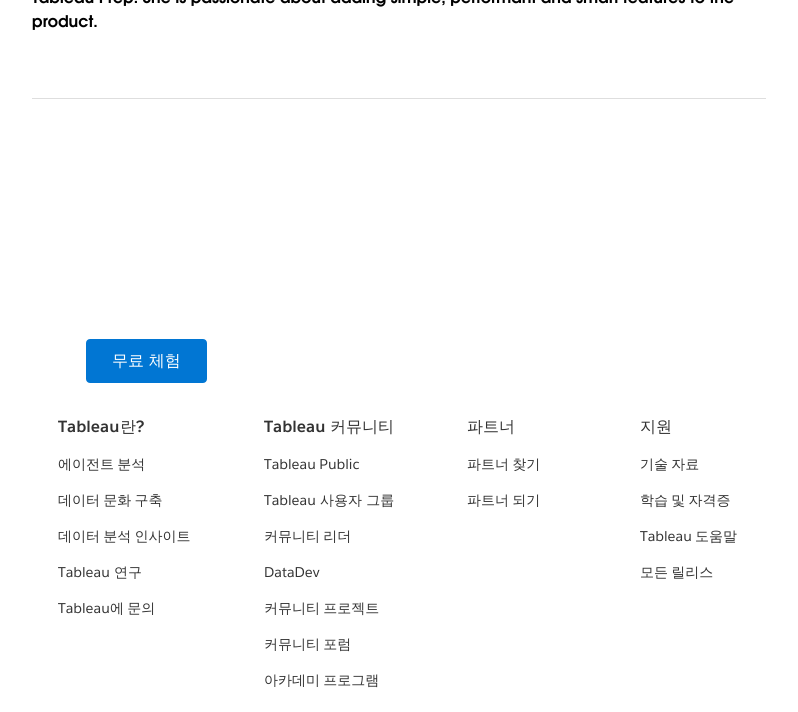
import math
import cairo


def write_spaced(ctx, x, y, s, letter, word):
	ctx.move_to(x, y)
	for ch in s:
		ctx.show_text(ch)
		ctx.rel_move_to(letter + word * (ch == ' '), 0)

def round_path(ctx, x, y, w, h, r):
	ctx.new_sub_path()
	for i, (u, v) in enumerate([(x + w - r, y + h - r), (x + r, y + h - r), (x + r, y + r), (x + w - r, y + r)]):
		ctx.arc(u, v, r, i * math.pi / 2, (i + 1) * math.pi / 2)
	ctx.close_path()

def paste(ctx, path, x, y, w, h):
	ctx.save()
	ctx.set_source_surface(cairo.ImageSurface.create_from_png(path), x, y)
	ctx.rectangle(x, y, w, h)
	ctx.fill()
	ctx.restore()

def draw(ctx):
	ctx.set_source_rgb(1, 1, 1)
	ctx.paint()
	paste(ctx, 'media/1.png', 34, 0, 700, 7)
	paste(ctx, 'media/2.png', 32, 15, 65, 15)
	ctx.set_source_rgb(0.871, 0.871, 0.871)
	ctx.rectangle(32, 98, 734, 1)
	ctx.fill()
	ctx.set_source_rgb(0.004, 0.463, 0.827)
	round_path(ctx, 87, 340, 119, 42, 3)
	ctx.fill_preserve()
	ctx.stroke()
	ctx.select_font_face('WenQuanYi Zen Hei Medium')
	ctx.set_font_size(16)
	ctx.set_source_rgb(1, 1, 1)
	ctx.move_to(112, 366)
	ctx.show_text('무료 체험')
	ctx.select_font_face('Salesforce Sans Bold', cairo.FONT_SLANT_NORMAL, cairo.FONT_WEIGHT_BOLD)
	ctx.set_source_rgb(0.2, 0.2, 0.2)
	ctx.move_to(58, 432)
	ctx.show_text('Tableau')
	ctx.select_font_face('WenQuanYi Zen Hei Medium')
	ctx.move_to(120, 432)
	ctx.show_text('란')
	ctx.select_font_face('Salesforce Sans Bold', cairo.FONT_SLANT_NORMAL, cairo.FONT_WEIGHT_BOLD)
	ctx.move_to(136, 432)
	ctx.show_text('?')
	ctx.select_font_face('WenQuanYi Zen Hei Medium')
	ctx.set_font_size(14)
	for x, y, s in [
		(58, 469, '에이전트 분석'),
		(58, 505, '데이터 문화 구축'),
		(58, 541, '데이터 분석 인사이트'),
	]:
		write_spaced(ctx, x, y, s, 0, -1)
	ctx.select_font_face('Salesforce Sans')
	ctx.move_to(58, 577)
	ctx.show_text('Tableau')
	ctx.select_font_face('WenQuanYi Zen Hei Medium')
	ctx.move_to(114, 577)
	ctx.show_text('연구')
	ctx.select_font_face('Salesforce Sans')
	ctx.move_to(58, 613)
	ctx.show_text('Tableau')
	ctx.select_font_face('WenQuanYi Zen Hei Medium')
	write_spaced(ctx, 110, 613, '에 문의', 0, -1)
	ctx.select_font_face('Salesforce Sans Bold', cairo.FONT_SLANT_NORMAL, cairo.FONT_WEIGHT_BOLD)
	ctx.set_font_size(16)
	ctx.move_to(264, 432)
	ctx.show_text('Tableau')
	ctx.select_font_face('WenQuanYi Zen Hei Medium')
	ctx.move_to(330, 432)
	ctx.show_text('커뮤니티')
	ctx.select_font_face('Salesforce Sans')
	ctx.set_font_size(14)
	ctx.move_to(264, 469)
	ctx.show_text('Tableau Public')
	ctx.move_to(264, 505)
	ctx.show_text('Tableau')
	ctx.select_font_face('WenQuanYi Zen Hei Medium')
	ctx.move_to(320, 505)
	ctx.show_text('사용자 그룹')
	write_spaced(ctx, 264, 541, '커뮤니티 리더', 0, -1)
	ctx.select_font_face('Salesforce Sans')
	ctx.move_to(264, 577)
	ctx.show_text('DataDev')
	ctx.select_font_face('WenQuanYi Zen Hei Medium')
	for x, y, s in [
		(264, 613, '커뮤니티 프로젝트'),
		(264, 649, '커뮤니티 포럼'),
		(264, 685, '아카데미 프로그램'),
	]:
		write_spaced(ctx, x, y, s, 0, -1)
	ctx.set_font_size(16)
	ctx.move_to(467, 432)
	ctx.show_text('파트너')
	ctx.set_font_size(14)
	write_spaced(ctx, 467, 469, '파트너 찾기', 0, -1)
	write_spaced(ctx, 467, 505, '파트너 되기', 0, -1)
	ctx.set_font_size(16)
	ctx.move_to(640, 432)
	ctx.show_text('지원')
	ctx.set_font_size(14)
	write_spaced(ctx, 640, 469, '기술 자료', 0, -1)
	write_spaced(ctx, 640, 505, '학습 및 자격증', 0, -1)
	ctx.select_font_face('Salesforce Sans')
	ctx.move_to(640, 541)
	ctx.show_text('Tableau')
	ctx.select_font_face('WenQuanYi Zen Hei Medium')
	ctx.move_to(695, 541)
	ctx.show_text('도움말')
	write_spaced(ctx, 640, 577, '모든 릴리스', 0, -1)


surface = cairo.ImageSurface(cairo.FORMAT_RGB24, 798, 712)
ctx = cairo.Context(surface)
options = cairo.FontOptions()
options.set_hint_metrics(cairo.HINT_METRICS_OFF)
options.set_hint_style(cairo.HINT_STYLE_NONE)
ctx.set_font_options(options)
ctx.set_miter_limit(4)
draw(ctx)
surface.write_to_png('image.png')
